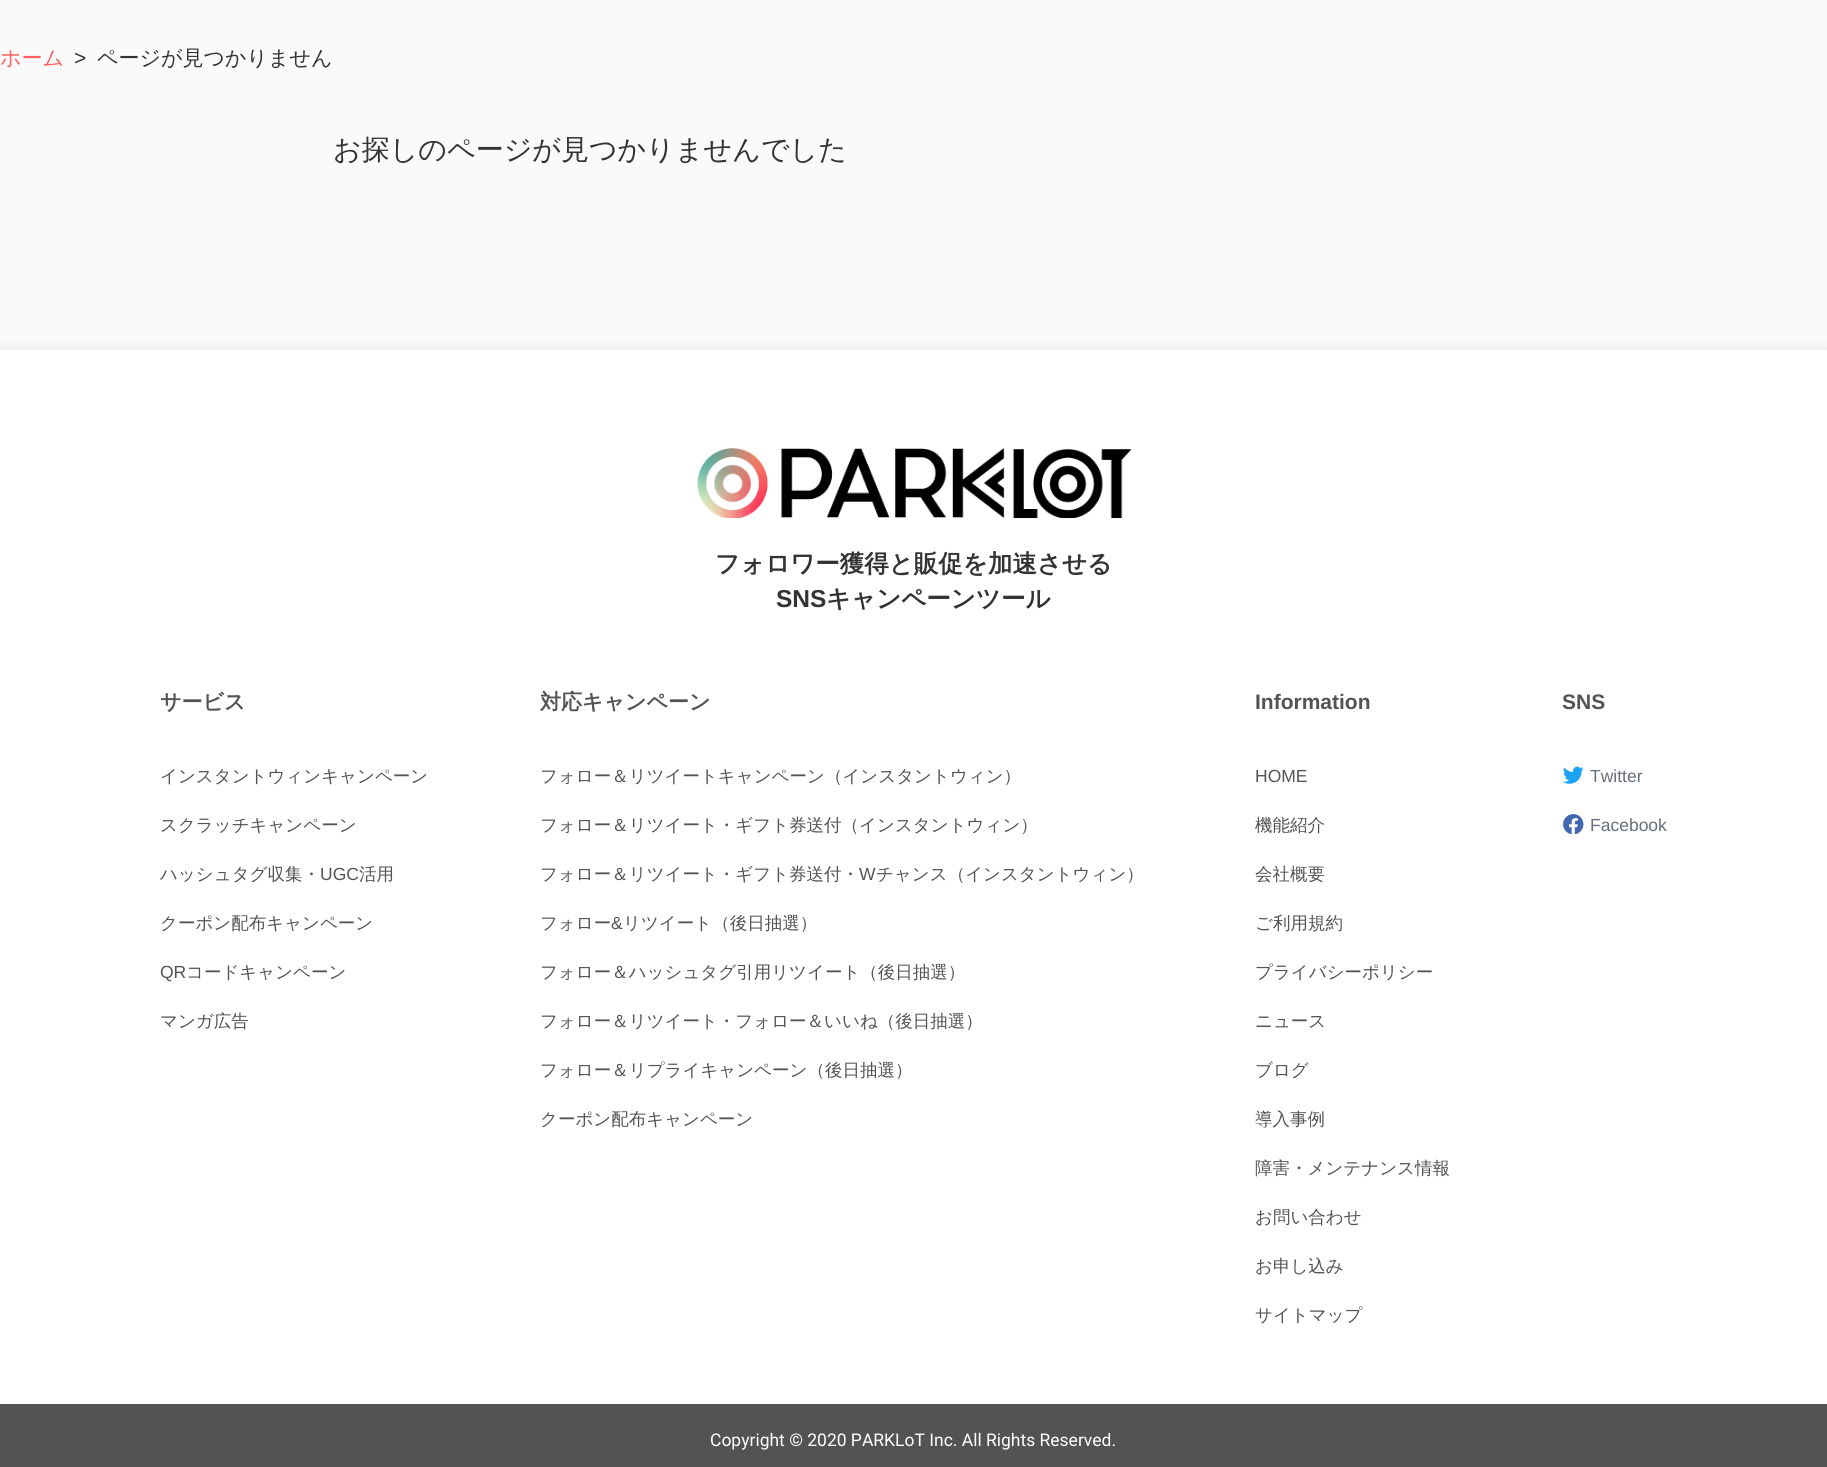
import math
import cairo


def round_path(ctx, x, y, w, h, r):
	ctx.new_sub_path()
	for i, (u, v) in enumerate([(x + w - r, y + h - r), (x + r, y + h - r), (x + r, y + r), (x + w - r, y + r)]):
		ctx.arc(u, v, r, i * math.pi / 2, (i + 1) * math.pi / 2)
	ctx.close_path()

def blur_box(ctx, x, y, w, h, r, blur, alpha):
	ctx.push_group_with_content(cairo.CONTENT_ALPHA)
	ctx.set_operator(cairo.OPERATOR_SOURCE)
	for i in range(15, -16, -2):
		e = blur * i / 6
		if min(w, h) + 2 * e > 0:
			ctx.set_source_rgba(0, 0, 0, alpha * math.erfc((i - 1) / 8.5) / 2)
			round_path(ctx, x - e, y - e, w + 2 * e, h + 2 * e, max(0, min(r + e + blur * .6, min(w, h) / 2 + e)))
			ctx.fill()
	ctx.mask(ctx.pop_group())

def paste(ctx, path, x, y, w, h):
	ctx.save()
	ctx.set_source_surface(cairo.ImageSurface.create_from_png(path), x, y)
	ctx.rectangle(x, y, w, h)
	ctx.fill()
	ctx.restore()

def draw(ctx):
	ctx.set_source_rgb(0.98, 0.98, 0.98)
	ctx.paint()
	ctx.select_font_face('WenQuanYi Zen Hei Medium')
	ctx.set_font_size(21)
	ctx.set_source_rgb(0.996, 0.369, 0.369)
	ctx.move_to(0, 65)
	ctx.show_text('ホーム')
	ctx.select_font_face('Liberation Sans')
	ctx.set_source_rgb(0.2, 0.2, 0.2)
	ctx.move_to(74, 65)
	ctx.show_text('>')
	ctx.select_font_face('WenQuanYi Zen Hei Medium')
	ctx.move_to(97, 65)
	ctx.show_text('ページが見つかりません')
	ctx.set_font_size(28)
	ctx.move_to(333, 159)
	ctx.show_text('お探しのページが見つかりませんでした')
	ctx.set_source_rgb(0.667, 0.667, 0.667)
	blur_box(ctx, 0, 361, 1827, 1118, 0, 10.5, 1)
	ctx.set_source_rgb(1, 1, 1)
	ctx.rectangle(0, 350, 1827, 1054)
	ctx.fill()
	paste(ctx, 'media/1.png', 697, 448, 435, 70)
	ctx.select_font_face('WenQuanYi Zen Hei', cairo.FONT_SLANT_NORMAL, cairo.FONT_WEIGHT_BOLD)
	ctx.set_font_size(24.5)
	ctx.set_source_rgb(0.2, 0.2, 0.2)
	ctx.move_to(715, 572)
	ctx.show_text('フォロワー獲得と販促を加速させる')
	ctx.select_font_face('Liberation Sans', cairo.FONT_SLANT_NORMAL, cairo.FONT_WEIGHT_BOLD)
	ctx.move_to(776, 607)
	ctx.show_text('SNS')
	ctx.select_font_face('WenQuanYi Zen Hei', cairo.FONT_SLANT_NORMAL, cairo.FONT_WEIGHT_BOLD)
	ctx.move_to(826, 607)
	ctx.show_text('キャンペーンツール')
	ctx.set_font_size(21)
	ctx.set_source_rgb(0.325, 0.325, 0.325)
	ctx.move_to(160, 709)
	ctx.show_text('サービス')
	ctx.select_font_face('WenQuanYi Zen Hei Medium')
	ctx.set_font_size(17.5)
	for x, y, s in [
		(160, 782, 'インスタントウィンキャンペーン'),
		(160, 831, 'スクラッチキャンペーン'),
		(160, 880, 'ハッシュタグ収集・'),
	]:
		ctx.move_to(x, y)
		ctx.show_text(s)
	ctx.select_font_face('Liberation Sans')
	ctx.move_to(320, 880)
	ctx.show_text('UGC')
	ctx.select_font_face('WenQuanYi Zen Hei Medium')
	ctx.move_to(359, 880)
	ctx.show_text('活用')
	ctx.move_to(160, 929)
	ctx.show_text('クーポン配布キャンペーン')
	ctx.select_font_face('Liberation Sans')
	ctx.move_to(160, 978)
	ctx.show_text('QR')
	ctx.select_font_face('WenQuanYi Zen Hei Medium')
	ctx.move_to(186, 978)
	ctx.show_text('コードキャンペーン')
	ctx.move_to(160, 1027)
	ctx.show_text('マンガ広告')
	ctx.select_font_face('WenQuanYi Zen Hei', cairo.FONT_SLANT_NORMAL, cairo.FONT_WEIGHT_BOLD)
	ctx.set_font_size(21)
	ctx.move_to(540, 709)
	ctx.show_text('対応キャンペーン')
	ctx.select_font_face('WenQuanYi Zen Hei Medium')
	ctx.set_font_size(17.5)
	for x, y, s in [
		(540, 782, 'フォロー＆リツイートキャンペーン（インスタントウィン）'),
		(540, 831, 'フォロー＆リツイート・ギフト券送付（インスタントウィン）'),
		(540, 880, 'フォロー＆リツイート・ギフト券送付・'),
	]:
		ctx.move_to(x, y)
		ctx.show_text(s)
	ctx.select_font_face('Liberation Sans')
	ctx.move_to(859, 880)
	ctx.show_text('W')
	ctx.select_font_face('WenQuanYi Zen Hei Medium')
	ctx.move_to(876, 880)
	ctx.show_text('チャンス（インスタントウィン）')
	ctx.move_to(540, 929)
	ctx.show_text('フォロー')
	ctx.select_font_face('Liberation Sans')
	ctx.move_to(611, 929)
	ctx.show_text('&')
	ctx.select_font_face('WenQuanYi Zen Hei Medium')
	for x, y, s in [
		(623, 929, 'リツイート（後日抽選）'),
		(540, 978, 'フォロー＆ハッシュタグ引用リツイート（後日抽選）'),
		(540, 1027, 'フォロー＆リツイート・フォロー＆いいね（後日抽選）'),
		(540, 1076, 'フォロー＆リプライキャンペーン（後日抽選）'),
		(540, 1125, 'クーポン配布キャンペーン'),
	]:
		ctx.move_to(x, y)
		ctx.show_text(s)
	ctx.select_font_face('Liberation Sans', cairo.FONT_SLANT_NORMAL, cairo.FONT_WEIGHT_BOLD)
	ctx.set_font_size(21)
	ctx.move_to(1255, 709)
	ctx.show_text('Information')
	ctx.select_font_face('Liberation Sans')
	ctx.set_font_size(17.5)
	ctx.move_to(1255, 782)
	ctx.show_text('HOME')
	ctx.select_font_face('WenQuanYi Zen Hei Medium')
	for x, y, s in [
		(1255, 831, '機能紹介'),
		(1255, 880, '会社概要'),
		(1255, 929, 'ご利用規約'),
		(1255, 978, 'プライバシーポリシー'),
		(1255, 1027, 'ニュース'),
		(1255, 1076, 'ブログ'),
		(1255, 1125, '導入事例'),
		(1255, 1174, '障害・メンテナンス情報'),
		(1255, 1223, 'お問い合わせ'),
		(1255, 1272, 'お申し込み'),
		(1255, 1321, 'サイトマップ'),
	]:
		ctx.move_to(x, y)
		ctx.show_text(s)
	ctx.select_font_face('Liberation Sans', cairo.FONT_SLANT_NORMAL, cairo.FONT_WEIGHT_BOLD)
	ctx.set_font_size(21)
	ctx.move_to(1562, 709)
	ctx.show_text('SNS')
	paste(ctx, 'media/2.png', 1563, 766, 21, 18)
	ctx.select_font_face('Liberation Sans')
	ctx.set_font_size(17.5)
	ctx.set_source_rgb(0.408, 0.435, 0.478)
	ctx.move_to(1590, 782)
	ctx.show_text('Twitter')
	paste(ctx, 'media/3.png', 1563, 814, 21, 21)
	ctx.move_to(1590, 831)
	ctx.show_text('Facebook')
	ctx.set_source_rgb(0.325, 0.325, 0.325)
	ctx.rectangle(0, 1404, 1827, 63)
	ctx.fill()
	ctx.select_font_face('Roboto')
	ctx.set_source_rgb(1, 1, 1)
	ctx.move_to(710, 1446)
	ctx.show_text('Copyright © 2020 PARKLoT Inc. All Rights Reserved.')


surface = cairo.ImageSurface(cairo.FORMAT_RGB24, 1827, 1467)
ctx = cairo.Context(surface)
options = cairo.FontOptions()
options.set_hint_metrics(cairo.HINT_METRICS_OFF)
options.set_hint_style(cairo.HINT_STYLE_NONE)
ctx.set_font_options(options)
ctx.set_miter_limit(4)
draw(ctx)
surface.write_to_png('image.png')
